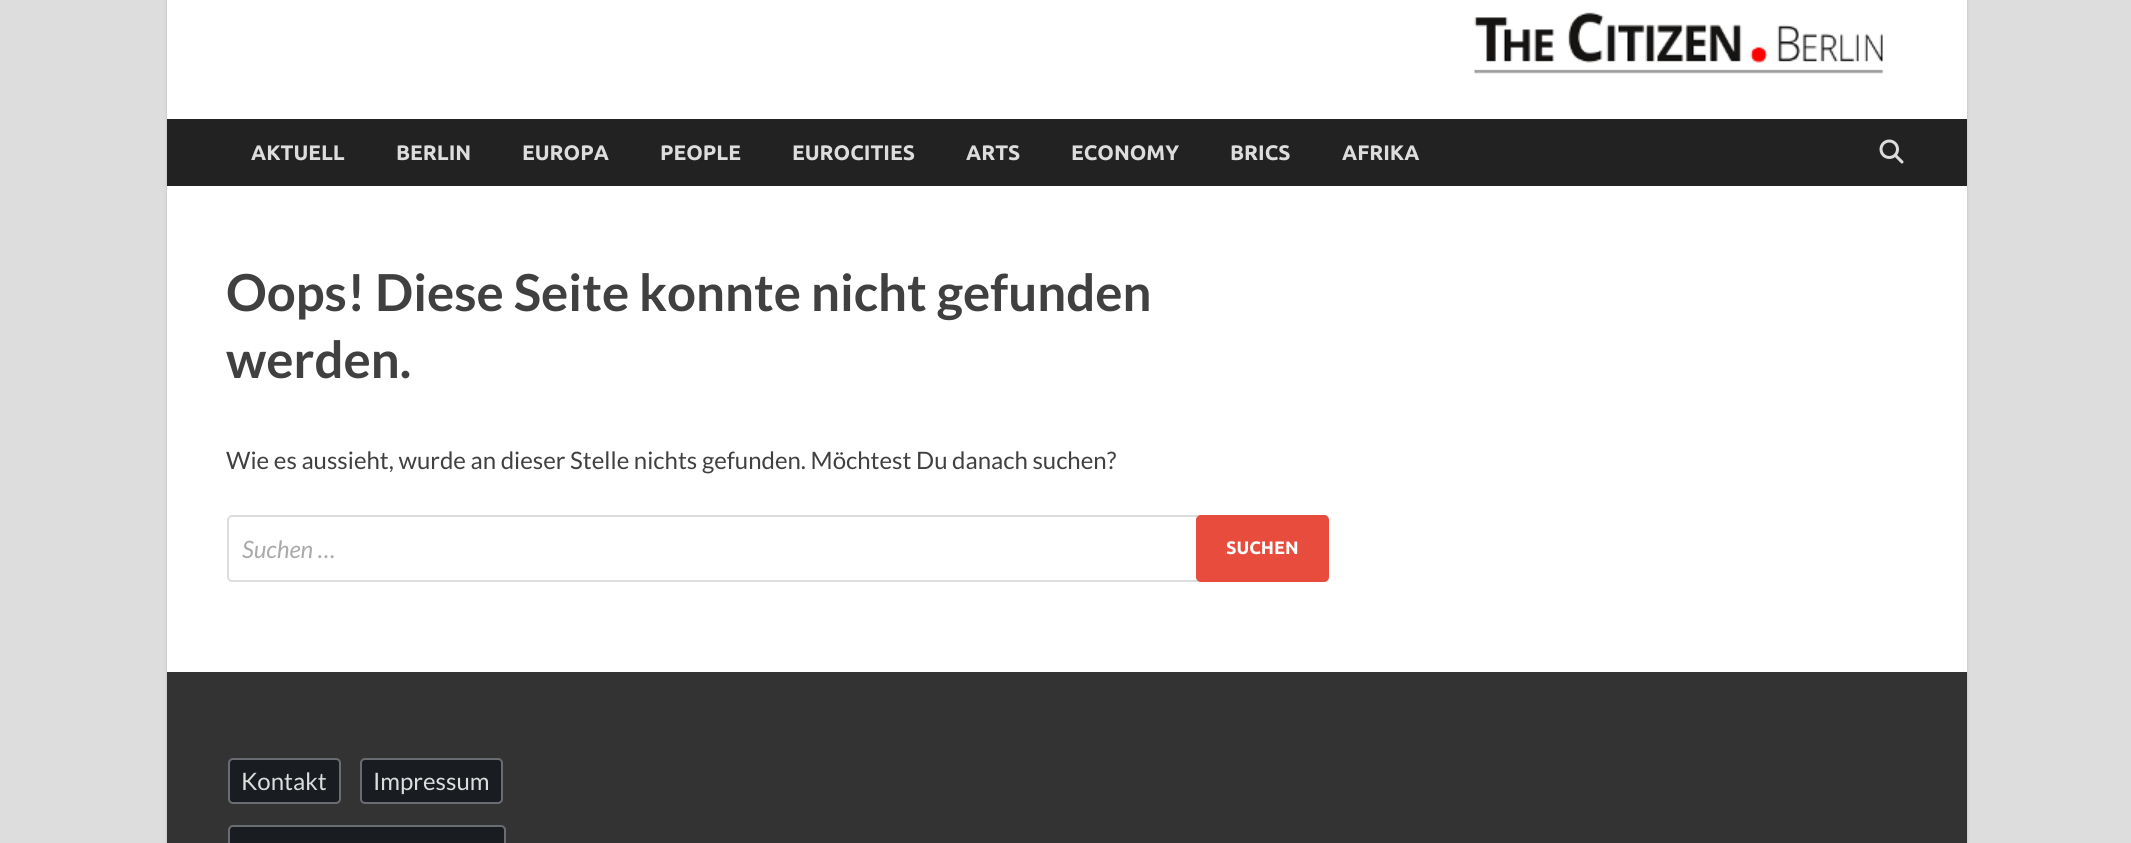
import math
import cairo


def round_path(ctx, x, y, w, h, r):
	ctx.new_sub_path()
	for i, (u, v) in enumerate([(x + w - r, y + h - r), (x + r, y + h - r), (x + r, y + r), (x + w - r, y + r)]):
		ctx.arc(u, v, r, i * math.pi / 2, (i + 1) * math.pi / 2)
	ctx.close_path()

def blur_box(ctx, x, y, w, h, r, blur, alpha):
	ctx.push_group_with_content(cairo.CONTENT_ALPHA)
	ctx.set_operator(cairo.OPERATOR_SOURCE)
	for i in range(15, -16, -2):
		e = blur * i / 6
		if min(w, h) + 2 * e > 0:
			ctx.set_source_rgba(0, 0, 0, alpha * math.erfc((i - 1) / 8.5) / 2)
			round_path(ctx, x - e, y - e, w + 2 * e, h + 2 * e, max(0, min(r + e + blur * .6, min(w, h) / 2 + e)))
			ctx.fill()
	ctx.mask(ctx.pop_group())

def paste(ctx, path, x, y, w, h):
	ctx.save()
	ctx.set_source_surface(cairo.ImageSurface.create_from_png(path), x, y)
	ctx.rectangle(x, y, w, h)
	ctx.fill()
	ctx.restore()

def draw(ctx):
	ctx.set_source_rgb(0.867, 0.867, 0.867)
	ctx.paint()
	ctx.set_source_rgb(0.733, 0.733, 0.733)
	blur_box(ctx, 167, -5, 1800, 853, 0, 1.5, 1)
	ctx.set_source_rgb(1, 1, 1)
	ctx.rectangle(167, 0, 1800, 672)
	ctx.fill()
	paste(ctx, 'media/1.png', 1474, 12, 410, 62)
	ctx.set_source_rgb(0.133, 0.133, 0.133)
	ctx.rectangle(167, 119, 1800, 67)
	ctx.fill()
	ctx.select_font_face('Ubuntu', cairo.FONT_SLANT_NORMAL, cairo.FONT_WEIGHT_BOLD)
	ctx.set_font_size(21)
	ctx.set_source_rgb(0.867, 0.867, 0.867)
	for x, y, s in [
		(251, 160, 'AKTUELL'),
		(396, 160, 'BERLIN'),
		(522, 160, 'EUROPA'),
		(660, 160, 'PEOPLE'),
		(792, 160, 'EUROCITIES'),
		(966, 160, 'ARTS'),
		(1071, 160, 'ECONOMY'),
		(1230, 160, 'BRICS'),
		(1342, 160, 'AFRIKA'),
	]:
		ctx.move_to(x, y)
		ctx.show_text(s)
	paste(ctx, 'media/2.png', 1879, 139, 25, 25)
	ctx.select_font_face('Lato', cairo.FONT_SLANT_NORMAL, cairo.FONT_WEIGHT_BOLD)
	ctx.set_font_size(51)
	ctx.set_source_rgb(0.251, 0.251, 0.251)
	ctx.move_to(226, 311)
	ctx.show_text('Oops! Diese Seite konnte nicht gefunden')
	ctx.move_to(226, 378)
	ctx.show_text('werden.')
	ctx.select_font_face('Lato')
	ctx.set_font_size(24)
	ctx.move_to(226, 469)
	ctx.show_text('Wie es aussieht, wurde an dieser Stelle nichts gefunden. Möchtest Du danach suchen?')
	round_path(ctx, 228, 516, 1100, 65, 4)
	ctx.set_source_rgb(0.867, 0.867, 0.867)
	ctx.stroke()
	ctx.select_font_face('Lato', cairo.FONT_SLANT_ITALIC)
	ctx.set_source_rgb(0.667, 0.667, 0.667)
	ctx.move_to(242, 558)
	ctx.show_text('Suchen …')
	ctx.set_source_rgb(0.906, 0.298, 0.235)
	round_path(ctx, 1196, 515, 133, 67, 5)
	ctx.fill()
	ctx.select_font_face('Ubuntu', cairo.FONT_SLANT_NORMAL, cairo.FONT_WEIGHT_BOLD)
	ctx.set_font_size(18)
	ctx.set_source_rgb(1, 1, 1)
	ctx.move_to(1226, 554)
	ctx.show_text('SUCHEN')
	ctx.set_source_rgb(0.2, 0.2, 0.2)
	ctx.rectangle(167, 672, 1800, 171)
	ctx.fill()
	ctx.set_source_rgb(0.098, 0.114, 0.133)
	round_path(ctx, 229, 759, 111, 44, 4)
	ctx.fill_preserve()
	ctx.set_source_rgb(0.412, 0.427, 0.447)
	ctx.stroke()
	ctx.select_font_face('Lato')
	ctx.set_font_size(24)
	ctx.set_source_rgb(0.867, 0.867, 0.867)
	ctx.move_to(241, 790)
	ctx.show_text('Kontakt')
	ctx.set_source_rgb(0.098, 0.114, 0.133)
	round_path(ctx, 361, 759, 141, 44, 4)
	ctx.fill_preserve()
	ctx.set_source_rgb(0.412, 0.427, 0.447)
	ctx.stroke()
	ctx.set_source_rgb(0.867, 0.867, 0.867)
	ctx.move_to(373, 790)
	ctx.show_text('Impressum')
	ctx.set_source_rgb(0.098, 0.114, 0.133)
	round_path(ctx, 229, 826, 276, 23, 4)
	ctx.fill_preserve()
	ctx.set_source_rgb(0.412, 0.427, 0.447)
	ctx.stroke()


surface = cairo.ImageSurface(cairo.FORMAT_RGB24, 2131, 843)
ctx = cairo.Context(surface)
options = cairo.FontOptions()
options.set_hint_metrics(cairo.HINT_METRICS_OFF)
options.set_hint_style(cairo.HINT_STYLE_NONE)
ctx.set_font_options(options)
ctx.set_miter_limit(4)
draw(ctx)
surface.write_to_png('image.png')
